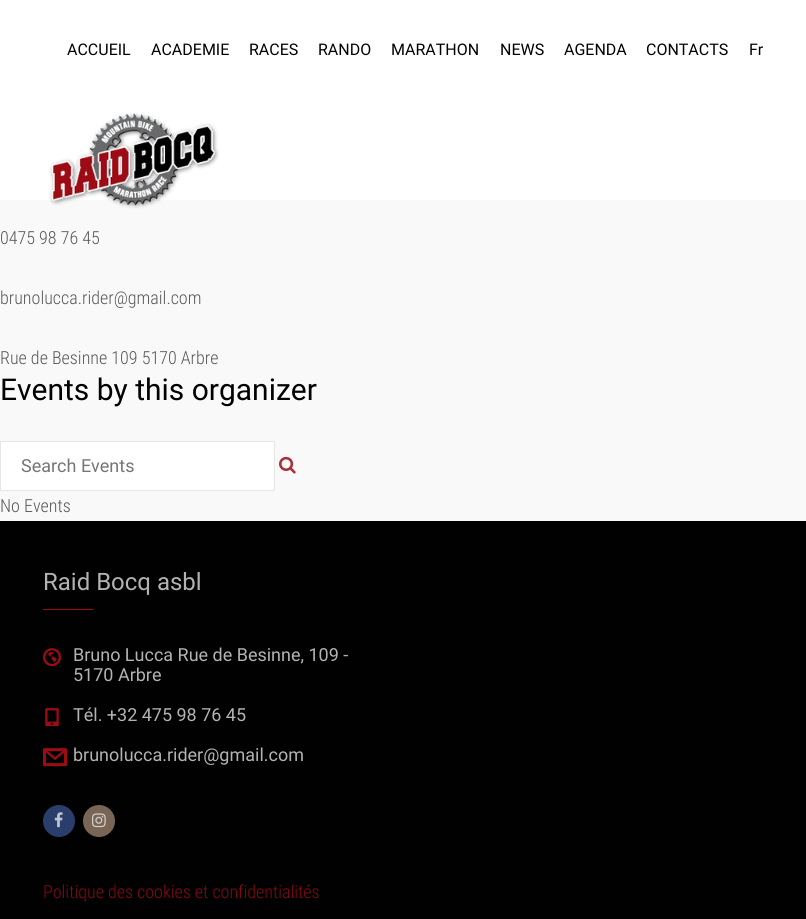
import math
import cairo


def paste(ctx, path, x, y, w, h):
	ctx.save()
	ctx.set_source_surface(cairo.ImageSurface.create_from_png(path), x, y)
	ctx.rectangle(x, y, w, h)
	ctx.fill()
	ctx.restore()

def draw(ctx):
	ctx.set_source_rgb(0.973, 0.973, 0.973)
	ctx.paint()
	ctx.set_source_rgb(1, 1, 1)
	ctx.rectangle(0, 0, 806, 200)
	ctx.fill()
	ctx.select_font_face('Roboto')
	ctx.set_font_size(16)
	ctx.set_source_rgb(0.004, 0.004, 0.004)
	for x, y, s in [
		(67, 55, 'ACCUEIL'),
		(151, 55, 'ACADEMIE'),
		(249, 55, 'RACES'),
		(318, 55, 'RANDO'),
		(391, 55, 'MARATHON'),
		(500, 55, 'NEWS'),
		(564, 55, 'AGENDA'),
		(646, 55, 'CONTACTS'),
		(749, 55, 'Fr'),
	]:
		ctx.move_to(x, y)
		ctx.show_text(s)
	paste(ctx, 'media/1.png', 49, 113, 170, 96)
	ctx.select_font_face('Roboto Condensed Light')
	ctx.set_font_size(18)
	ctx.set_source_rgb(0.349, 0.349, 0.349)
	for x, y, s in [
		(0, 244, '0475 98 76 45'),
		(0, 304, 'brunolucca.rider@gmail.com'),
		(0, 364, 'Rue de Besinne 109 5170 Arbre'),
	]:
		ctx.move_to(x, y)
		ctx.show_text(s)
	ctx.select_font_face('Roboto')
	ctx.set_font_size(30)
	ctx.set_source_rgb(0.004, 0.004, 0.004)
	ctx.move_to(0, 400)
	ctx.show_text('Events by this organizer')
	ctx.set_source_rgb(1, 1, 1)
	ctx.rectangle(0.5, 441.5, 274, 49)
	ctx.fill_preserve()
	ctx.set_source_rgb(0.902, 0.902, 0.902)
	ctx.set_line_width(1)
	ctx.stroke()
	ctx.set_font_size(18)
	ctx.set_source_rgb(0.459, 0.459, 0.459)
	ctx.move_to(21, 472)
	ctx.show_text('Search Events')
	paste(ctx, 'media/2.png', 279, 456, 17, 18)
	ctx.select_font_face('Roboto Condensed Light')
	ctx.set_source_rgb(0.349, 0.349, 0.349)
	ctx.move_to(0, 512)
	ctx.show_text('No Events')
	ctx.set_source_rgb(0.004, 0.004, 0.004)
	ctx.rectangle(0, 521, 806, 398)
	ctx.fill()
	ctx.select_font_face('Roboto')
	ctx.set_font_size(24)
	ctx.set_source_rgb(0.702, 0.702, 0.702)
	ctx.move_to(43, 590)
	ctx.show_text('Raid Bocq asbl')
	ctx.set_source_rgb(0.616, 0.047, 0.082)
	ctx.rectangle(43, 609, 50, 1)
	ctx.fill()
	paste(ctx, 'media/3.png', 43, 648, 18, 19)
	ctx.set_font_size(18)
	ctx.set_source_rgb(0.702, 0.702, 0.702)
	ctx.move_to(73, 661)
	ctx.show_text('Bruno Lucca Rue de Besinne, 109 -')
	ctx.move_to(73, 681)
	ctx.show_text('5170 Arbre')
	paste(ctx, 'media/4.png', 45, 708, 14, 19)
	ctx.move_to(73, 721)
	ctx.show_text('Tél. +32 475 98 76 45')
	paste(ctx, 'media/5.png', 43, 748, 24, 19)
	ctx.move_to(73, 761)
	ctx.show_text('brunolucca.rider@gmail.com')
	ctx.set_source_rgb(0.161, 0.243, 0.416)
	ctx.new_path()
	ctx.arc(59, 821, 16, 0, 2 * math.pi)
	ctx.fill()
	paste(ctx, 'media/6.png', 54, 812, 9, 16)
	ctx.set_source_rgb(0.475, 0.396, 0.337)
	ctx.arc(99, 821, 16, 0, 2 * math.pi)
	ctx.fill()
	paste(ctx, 'media/7.png', 92, 813, 14, 15)
	ctx.select_font_face('Roboto Condensed Light')
	ctx.set_source_rgb(0.525, 0.039, 0.071)
	ctx.move_to(43, 898)
	ctx.show_text('Politique des cookies et confidentialités')


surface = cairo.ImageSurface(cairo.FORMAT_RGB24, 806, 919)
ctx = cairo.Context(surface)
options = cairo.FontOptions()
options.set_hint_metrics(cairo.HINT_METRICS_OFF)
options.set_hint_style(cairo.HINT_STYLE_NONE)
ctx.set_font_options(options)
ctx.set_miter_limit(4)
draw(ctx)
surface.write_to_png('image.png')
